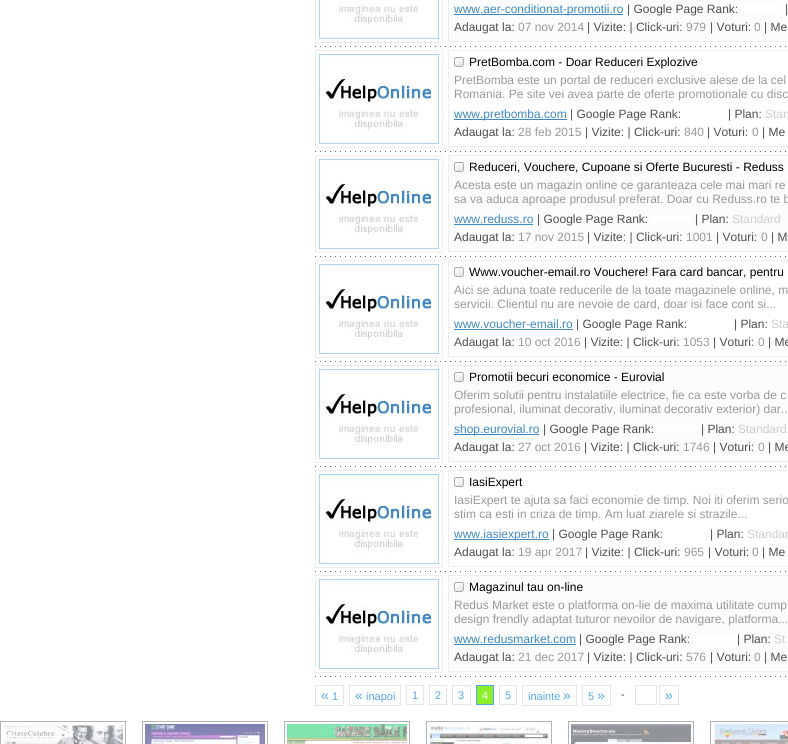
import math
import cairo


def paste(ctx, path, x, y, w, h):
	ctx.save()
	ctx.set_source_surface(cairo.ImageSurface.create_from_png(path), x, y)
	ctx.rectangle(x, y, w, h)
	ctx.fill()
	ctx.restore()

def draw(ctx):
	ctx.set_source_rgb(1, 1, 1)
	ctx.paint()
	ctx.rectangle(315.5, -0.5, 127, 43)
	ctx.set_source_rgb(0.933, 0.933, 0.933)
	ctx.set_line_width(1)
	ctx.stroke()
	paste(ctx, 'media/1.png', 319, 0, 120, 39)
	ctx.set_source_rgb(0.984, 0.988, 0.992)
	ctx.rectangle(448.5, -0.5, 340, 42)
	ctx.fill_preserve()
	ctx.set_source_rgb(0.933, 0.933, 0.933)
	ctx.stroke()
	ctx.set_source_rgb(0.247, 0.537, 0.765)
	ctx.rectangle(454, 14, 169, 1)
	ctx.fill()
	ctx.select_font_face('Liberation Sans')
	ctx.set_font_size(12)
	ctx.move_to(454, 13)
	ctx.show_text('www.aer-conditionat-promotii.ro')
	ctx.set_source_rgb(0.306, 0.306, 0.306)
	ctx.move_to(627, 13)
	ctx.show_text('| Google Page Rank:')
	ctx.set_source_rgb(1, 1, 1)
	ctx.rectangle(741, 6, 40, 5)
	ctx.fill()
	ctx.set_source_rgb(0.306, 0.306, 0.306)
	ctx.move_to(785, 13)
	ctx.show_text('|')
	ctx.move_to(454, 31)
	ctx.show_text('Adaugat la:')
	ctx.set_source_rgb(0.6, 0.6, 0.6)
	ctx.move_to(518, 31)
	ctx.show_text('07 nov 2014')
	ctx.set_source_rgb(0.306, 0.306, 0.306)
	ctx.move_to(587, 31)
	ctx.show_text('| Vizite: | Click-uri:')
	ctx.set_source_rgb(0.6, 0.6, 0.6)
	ctx.move_to(686, 31)
	ctx.show_text('979')
	ctx.set_source_rgb(0.306, 0.306, 0.306)
	ctx.move_to(710, 31)
	ctx.show_text('| Voturi:')
	ctx.set_source_rgb(0.6, 0.6, 0.6)
	ctx.move_to(754, 31)
	ctx.show_text('0')
	ctx.set_source_rgb(0.306, 0.306, 0.306)
	ctx.move_to(764, 31)
	ctx.show_text('| Me')
	paste(ctx, 'media/2.png', 315, 46, 471, 1)
	ctx.rectangle(315.5, 50.5, 127, 97)
	ctx.set_source_rgb(0.933, 0.933, 0.933)
	ctx.stroke()
	paste(ctx, 'media/3.png', 319, 54, 120, 90)
	ctx.rectangle(448.5, 50.5, 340, 96)
	ctx.stroke()
	paste(ctx, 'media/4.png', 454, 57, 10, 10)
	ctx.set_source_rgb(0, 0, 0)
	ctx.move_to(469, 66)
	ctx.show_text('PretBomba.com - Doar Reduceri Explozive')
	ctx.set_source_rgb(0.6, 0.6, 0.6)
	ctx.move_to(454, 84)
	ctx.show_text('PretBomba este un portal de reduceri exclusive alese de la cel')
	ctx.move_to(454, 98)
	ctx.show_text('Romania. Pe site vei avea parte de oferte promotionale cu disc')
	ctx.set_source_rgb(0.247, 0.537, 0.765)
	ctx.rectangle(454, 119, 113, 1)
	ctx.fill()
	ctx.move_to(454, 118)
	ctx.show_text('www.pretbomba.com')
	ctx.set_source_rgb(0.306, 0.306, 0.306)
	ctx.move_to(570, 118)
	ctx.show_text('| Google Page Rank:')
	ctx.move_to(728, 118)
	ctx.show_text('| Plan:')
	ctx.set_source_rgb(0.8, 0.8, 0.8)
	ctx.move_to(765, 118)
	ctx.show_text('Stan')
	ctx.set_source_rgb(0.306, 0.306, 0.306)
	ctx.move_to(454, 136)
	ctx.show_text('Adaugat la:')
	ctx.set_source_rgb(0.6, 0.6, 0.6)
	ctx.move_to(518, 136)
	ctx.show_text('28 feb 2015')
	ctx.set_source_rgb(0.306, 0.306, 0.306)
	ctx.move_to(585, 136)
	ctx.show_text('| Vizite: | Click-uri:')
	ctx.set_source_rgb(0.6, 0.6, 0.6)
	ctx.move_to(684, 136)
	ctx.show_text('840')
	ctx.set_source_rgb(0.306, 0.306, 0.306)
	ctx.move_to(707, 136)
	ctx.show_text('| Voturi:')
	ctx.set_source_rgb(0.6, 0.6, 0.6)
	ctx.move_to(752, 136)
	ctx.show_text('0')
	ctx.set_source_rgb(0.306, 0.306, 0.306)
	ctx.move_to(762, 136)
	ctx.show_text('| Me')
	paste(ctx, 'media/2.png', 315, 151, 471, 1)
	ctx.rectangle(315.5, 155.5, 127, 97)
	ctx.set_source_rgb(0.933, 0.933, 0.933)
	ctx.stroke()
	paste(ctx, 'media/3.png', 319, 159, 120, 90)
	ctx.set_source_rgb(0.984, 0.988, 0.992)
	ctx.rectangle(448.5, 155.5, 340, 96)
	ctx.fill_preserve()
	ctx.set_source_rgb(0.933, 0.933, 0.933)
	ctx.stroke()
	paste(ctx, 'media/4.png', 454, 162, 10, 10)
	ctx.set_source_rgb(0, 0, 0)
	ctx.move_to(469, 171)
	ctx.show_text('Reduceri, Vouchere, Cupoane si Oferte Bucuresti - Reduss')
	ctx.set_source_rgb(0.6, 0.6, 0.6)
	ctx.move_to(454, 189)
	ctx.show_text('Acesta este un magazin online ce garanteaza cele mai mari re')
	ctx.move_to(454, 203)
	ctx.show_text('sa va aduca aproape produsul preferat. Doar cu Reduss.ro te b')
	ctx.set_source_rgb(0.247, 0.537, 0.765)
	ctx.move_to(454, 223)
	ctx.show_text('www.reduss.ro')
	ctx.rectangle(454, 224, 79, 1)
	ctx.fill()
	ctx.set_source_rgb(0.306, 0.306, 0.306)
	ctx.move_to(537, 223)
	ctx.show_text('| Google Page Rank:')
	ctx.set_source_rgb(1, 1, 1)
	ctx.rectangle(651, 216, 40, 5)
	ctx.fill()
	ctx.set_source_rgb(0.306, 0.306, 0.306)
	ctx.move_to(695, 223)
	ctx.show_text('| Plan:')
	ctx.set_source_rgb(0.8, 0.8, 0.8)
	ctx.move_to(732, 223)
	ctx.show_text('Standard')
	ctx.set_source_rgb(0.306, 0.306, 0.306)
	ctx.move_to(454, 241)
	ctx.show_text('Adaugat la:')
	ctx.set_source_rgb(0.6, 0.6, 0.6)
	ctx.move_to(518, 241)
	ctx.show_text('17 nov 2015')
	ctx.set_source_rgb(0.306, 0.306, 0.306)
	ctx.move_to(587, 241)
	ctx.show_text('| Vizite: | Click-uri:')
	ctx.set_source_rgb(0.6, 0.6, 0.6)
	ctx.move_to(686, 241)
	ctx.show_text('1001')
	ctx.set_source_rgb(0.306, 0.306, 0.306)
	ctx.move_to(716, 241)
	ctx.show_text('| Voturi:')
	ctx.set_source_rgb(0.6, 0.6, 0.6)
	ctx.move_to(761, 241)
	ctx.show_text('0')
	ctx.set_source_rgb(0.306, 0.306, 0.306)
	ctx.move_to(771, 241)
	ctx.show_text('| M')
	paste(ctx, 'media/2.png', 315, 256, 471, 1)
	ctx.rectangle(315.5, 260.5, 127, 97)
	ctx.set_source_rgb(0.933, 0.933, 0.933)
	ctx.stroke()
	paste(ctx, 'media/3.png', 319, 264, 120, 90)
	ctx.rectangle(448.5, 260.5, 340, 96)
	ctx.stroke()
	paste(ctx, 'media/4.png', 454, 267, 10, 10)
	ctx.set_source_rgb(0, 0, 0)
	ctx.move_to(469, 276)
	ctx.show_text('Www.voucher-email.ro Vouchere! Fara card bancar, pentru')
	ctx.set_source_rgb(0.6, 0.6, 0.6)
	ctx.move_to(454, 294)
	ctx.show_text('Aici se aduna toate reducerile de la toate magazinele online, m')
	ctx.move_to(454, 308)
	ctx.show_text('servicii. Clientul nu are nevoie de card, doar isi face cont si...')
	ctx.set_source_rgb(0.247, 0.537, 0.765)
	ctx.move_to(454, 328)
	ctx.show_text('www.voucher-email.ro')
	ctx.rectangle(454, 329, 119, 1)
	ctx.fill()
	ctx.set_source_rgb(0.306, 0.306, 0.306)
	ctx.move_to(576, 328)
	ctx.show_text('| Google Page Rank:')
	ctx.move_to(734, 328)
	ctx.show_text('| Plan:')
	ctx.set_source_rgb(0.8, 0.8, 0.8)
	ctx.move_to(771, 328)
	ctx.show_text('Sta')
	ctx.set_source_rgb(0.306, 0.306, 0.306)
	ctx.move_to(454, 346)
	ctx.show_text('Adaugat la:')
	ctx.set_source_rgb(0.6, 0.6, 0.6)
	ctx.move_to(518, 346)
	ctx.show_text('10 oct 2016')
	ctx.set_source_rgb(0.306, 0.306, 0.306)
	ctx.move_to(584, 346)
	ctx.show_text('| Vizite: | Click-uri:')
	ctx.set_source_rgb(0.6, 0.6, 0.6)
	ctx.move_to(683, 346)
	ctx.show_text('1053')
	ctx.set_source_rgb(0.306, 0.306, 0.306)
	ctx.move_to(713, 346)
	ctx.show_text('| Voturi:')
	ctx.set_source_rgb(0.6, 0.6, 0.6)
	ctx.move_to(758, 346)
	ctx.show_text('0')
	ctx.set_source_rgb(0.306, 0.306, 0.306)
	ctx.move_to(768, 346)
	ctx.show_text('| Me')
	paste(ctx, 'media/2.png', 315, 361, 471, 1)
	ctx.rectangle(315.5, 365.5, 127, 97)
	ctx.set_source_rgb(0.933, 0.933, 0.933)
	ctx.stroke()
	paste(ctx, 'media/3.png', 319, 369, 120, 90)
	ctx.set_source_rgb(0.984, 0.988, 0.992)
	ctx.rectangle(448.5, 365.5, 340, 96)
	ctx.fill_preserve()
	ctx.set_source_rgb(0.933, 0.933, 0.933)
	ctx.stroke()
	paste(ctx, 'media/4.png', 454, 372, 10, 10)
	ctx.set_source_rgb(0, 0, 0)
	ctx.move_to(469, 381)
	ctx.show_text('Promotii becuri economice - Eurovial')
	ctx.set_source_rgb(0.6, 0.6, 0.6)
	ctx.move_to(454, 399)
	ctx.show_text('Oferim solutii pentru instalatiile electrice, fie ca este vorba de c')
	ctx.move_to(454, 413)
	ctx.show_text('profesional, iluminat decorativ, iluminat decorativ exterior) dar..')
	ctx.set_source_rgb(0.247, 0.537, 0.765)
	ctx.rectangle(454, 434, 85, 1)
	ctx.fill()
	ctx.move_to(454, 433)
	ctx.show_text('shop.eurovial.ro')
	ctx.set_source_rgb(0.306, 0.306, 0.306)
	ctx.move_to(543, 433)
	ctx.show_text('| Google Page Rank:')
	ctx.set_source_rgb(1, 1, 1)
	ctx.rectangle(657, 426, 40, 5)
	ctx.fill()
	ctx.set_source_rgb(0.306, 0.306, 0.306)
	ctx.move_to(701, 433)
	ctx.show_text('| Plan:')
	ctx.set_source_rgb(0.8, 0.8, 0.8)
	ctx.move_to(738, 433)
	ctx.show_text('Standard')
	ctx.set_source_rgb(0.306, 0.306, 0.306)
	ctx.move_to(454, 451)
	ctx.show_text('Adaugat la:')
	ctx.set_source_rgb(0.6, 0.6, 0.6)
	ctx.move_to(518, 451)
	ctx.show_text('27 oct 2016')
	ctx.set_source_rgb(0.306, 0.306, 0.306)
	ctx.move_to(584, 451)
	ctx.show_text('| Vizite: | Click-uri:')
	ctx.set_source_rgb(0.6, 0.6, 0.6)
	ctx.move_to(683, 451)
	ctx.show_text('1746')
	ctx.set_source_rgb(0.306, 0.306, 0.306)
	ctx.move_to(713, 451)
	ctx.show_text('| Voturi:')
	ctx.set_source_rgb(0.6, 0.6, 0.6)
	ctx.move_to(758, 451)
	ctx.show_text('0')
	ctx.set_source_rgb(0.306, 0.306, 0.306)
	ctx.move_to(768, 451)
	ctx.show_text('| Me')
	paste(ctx, 'media/2.png', 315, 466, 471, 1)
	ctx.rectangle(315.5, 470.5, 127, 97)
	ctx.set_source_rgb(0.933, 0.933, 0.933)
	ctx.stroke()
	paste(ctx, 'media/3.png', 319, 474, 120, 90)
	ctx.rectangle(448.5, 470.5, 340, 96)
	ctx.stroke()
	paste(ctx, 'media/4.png', 454, 477, 10, 10)
	ctx.set_source_rgb(0, 0, 0)
	ctx.move_to(469, 486)
	ctx.show_text('IasiExpert')
	ctx.set_source_rgb(0.6, 0.6, 0.6)
	ctx.move_to(454, 504)
	ctx.show_text('IasiExpert te ajuta sa faci economie de timp. Noi iti oferim serio')
	ctx.move_to(454, 518)
	ctx.show_text('stim ca esti in criza de timp. Am luat ziarele si strazile...')
	ctx.set_source_rgb(0.247, 0.537, 0.765)
	ctx.rectangle(454, 539, 95, 1)
	ctx.fill()
	ctx.move_to(454, 538)
	ctx.show_text('www.iasiexpert.ro')
	ctx.set_source_rgb(0.306, 0.306, 0.306)
	ctx.move_to(552, 538)
	ctx.show_text('| Google Page Rank:')
	ctx.move_to(710, 538)
	ctx.show_text('| Plan:')
	ctx.set_source_rgb(0.8, 0.8, 0.8)
	ctx.move_to(747, 538)
	ctx.show_text('Standar')
	ctx.set_source_rgb(0.306, 0.306, 0.306)
	ctx.move_to(454, 556)
	ctx.show_text('Adaugat la:')
	ctx.set_source_rgb(0.6, 0.6, 0.6)
	ctx.move_to(518, 556)
	ctx.show_text('19 apr 2017')
	ctx.set_source_rgb(0.306, 0.306, 0.306)
	ctx.move_to(585, 556)
	ctx.show_text('| Vizite: | Click-uri:')
	ctx.set_source_rgb(0.6, 0.6, 0.6)
	ctx.move_to(684, 556)
	ctx.show_text('965')
	ctx.set_source_rgb(0.306, 0.306, 0.306)
	ctx.move_to(708, 556)
	ctx.show_text('| Voturi:')
	ctx.set_source_rgb(0.6, 0.6, 0.6)
	ctx.move_to(752, 556)
	ctx.show_text('0')
	ctx.set_source_rgb(0.306, 0.306, 0.306)
	ctx.move_to(762, 556)
	ctx.show_text('| Me')
	paste(ctx, 'media/2.png', 315, 571, 471, 1)
	ctx.rectangle(315.5, 575.5, 127, 97)
	ctx.set_source_rgb(0.933, 0.933, 0.933)
	ctx.stroke()
	paste(ctx, 'media/3.png', 319, 579, 120, 90)
	ctx.set_source_rgb(0.984, 0.988, 0.992)
	ctx.rectangle(448.5, 575.5, 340, 96)
	ctx.fill_preserve()
	ctx.set_source_rgb(0.933, 0.933, 0.933)
	ctx.stroke()
	paste(ctx, 'media/4.png', 454, 582, 10, 10)
	ctx.set_source_rgb(0, 0, 0)
	ctx.move_to(469, 591)
	ctx.show_text('Magazinul tau on-line')
	ctx.set_source_rgb(0.6, 0.6, 0.6)
	ctx.move_to(454, 609)
	ctx.show_text('Redus Market este o platforma on-lie de maxima utilitate cump')
	ctx.move_to(454, 623)
	ctx.show_text('design frendly adaptat tuturor nevoilor de navigare, platforma...')
	ctx.set_source_rgb(0.247, 0.537, 0.765)
	ctx.move_to(454, 643)
	ctx.show_text('www.redusmarket.com')
	ctx.rectangle(454, 644, 122, 1)
	ctx.fill()
	ctx.set_source_rgb(0.306, 0.306, 0.306)
	ctx.move_to(579, 643)
	ctx.show_text('| Google Page Rank:')
	ctx.set_source_rgb(1, 1, 1)
	ctx.rectangle(694, 636, 40, 5)
	ctx.fill()
	ctx.set_source_rgb(0.306, 0.306, 0.306)
	ctx.move_to(737, 643)
	ctx.show_text('| Plan:')
	ctx.set_source_rgb(0.8, 0.8, 0.8)
	ctx.move_to(774, 643)
	ctx.show_text('St')
	ctx.set_source_rgb(0.306, 0.306, 0.306)
	ctx.move_to(454, 661)
	ctx.show_text('Adaugat la:')
	ctx.set_source_rgb(0.6, 0.6, 0.6)
	ctx.move_to(518, 661)
	ctx.show_text('21 dec 2017')
	ctx.set_source_rgb(0.306, 0.306, 0.306)
	ctx.move_to(587, 661)
	ctx.show_text('| Vizite: | Click-uri:')
	ctx.set_source_rgb(0.6, 0.6, 0.6)
	ctx.move_to(686, 661)
	ctx.show_text('576')
	ctx.set_source_rgb(0.306, 0.306, 0.306)
	ctx.move_to(710, 661)
	ctx.show_text('| Voturi:')
	ctx.set_source_rgb(0.6, 0.6, 0.6)
	ctx.move_to(754, 661)
	ctx.show_text('0')
	ctx.set_source_rgb(0.306, 0.306, 0.306)
	ctx.move_to(764, 661)
	ctx.show_text('| Me')
	paste(ctx, 'media/2.png', 315, 676, 471, 1)
	ctx.rectangle(315.5, 685.5, 28, 20)
	ctx.set_source_rgb(0.898, 0.898, 0.898)
	ctx.stroke()
	ctx.set_font_size(14)
	ctx.set_source_rgb(0.333, 0.659, 0.925)
	ctx.move_to(321, 700)
	ctx.show_text('«')
	ctx.set_font_size(11)
	ctx.move_to(332, 700)
	ctx.show_text('1')
	ctx.rectangle(349.5, 685.5, 51, 20)
	ctx.set_source_rgb(0.898, 0.898, 0.898)
	ctx.stroke()
	ctx.set_font_size(14)
	ctx.set_source_rgb(0.333, 0.659, 0.925)
	ctx.move_to(355, 700)
	ctx.show_text('«')
	ctx.set_font_size(11)
	ctx.move_to(366, 700)
	ctx.show_text('inapoi')
	ctx.rectangle(406.5, 685.5, 17, 19)
	ctx.set_source_rgb(0.898, 0.898, 0.898)
	ctx.stroke()
	ctx.set_source_rgb(0.333, 0.659, 0.925)
	ctx.move_to(412, 699)
	ctx.show_text('1')
	ctx.rectangle(429.5, 685.5, 17, 19)
	ctx.set_source_rgb(0.898, 0.898, 0.898)
	ctx.stroke()
	ctx.set_source_rgb(0.333, 0.659, 0.925)
	ctx.move_to(435, 699)
	ctx.show_text('2')
	ctx.rectangle(452.5, 685.5, 18, 19)
	ctx.set_source_rgb(0.898, 0.898, 0.898)
	ctx.stroke()
	ctx.set_source_rgb(0.333, 0.659, 0.925)
	ctx.move_to(458, 699)
	ctx.show_text('3')
	ctx.set_source_rgb(0.553, 0.937, 0.165)
	ctx.rectangle(476.5, 685.5, 17, 19)
	ctx.fill_preserve()
	ctx.set_source_rgb(0.333, 0.659, 0.925)
	ctx.stroke()
	ctx.set_source_rgb(1, 1, 1)
	ctx.move_to(482, 699)
	ctx.show_text('4')
	ctx.rectangle(499.5, 685.5, 17, 19)
	ctx.set_source_rgb(0.898, 0.898, 0.898)
	ctx.stroke()
	ctx.set_source_rgb(0.333, 0.659, 0.925)
	ctx.move_to(505, 699)
	ctx.show_text('5')
	ctx.rectangle(522.5, 685.5, 54, 20)
	ctx.set_source_rgb(0.898, 0.898, 0.898)
	ctx.stroke()
	ctx.set_source_rgb(0.333, 0.659, 0.925)
	ctx.move_to(528, 700)
	ctx.show_text('inainte')
	ctx.set_font_size(14)
	ctx.move_to(563, 700)
	ctx.show_text('»')
	ctx.rectangle(582.5, 685.5, 28, 20)
	ctx.set_source_rgb(0.898, 0.898, 0.898)
	ctx.stroke()
	ctx.set_font_size(11)
	ctx.set_source_rgb(0.333, 0.659, 0.925)
	ctx.move_to(588, 700)
	ctx.show_text('5')
	ctx.set_font_size(14)
	ctx.move_to(597, 700)
	ctx.show_text('»')
	ctx.set_font_size(11)
	ctx.set_source_rgb(0.306, 0.306, 0.306)
	ctx.move_to(621, 698)
	ctx.show_text('-')
	ctx.rectangle(635.5, 685.5, 21, 19)
	ctx.set_source_rgb(0.898, 0.898, 0.898)
	ctx.stroke()
	ctx.rectangle(659.5, 685.5, 19, 19)
	ctx.stroke()
	ctx.set_font_size(14)
	ctx.set_source_rgb(0.333, 0.659, 0.925)
	ctx.move_to(665, 700)
	ctx.show_text('»')
	ctx.rectangle(0.5, 721.5, 125, 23)
	ctx.set_source_rgb(0.702, 0.702, 0.702)
	ctx.stroke()
	paste(ctx, 'media/5.png', 3, 724, 120, 20)
	ctx.rectangle(142.5, 721.5, 125, 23)
	ctx.stroke()
	paste(ctx, 'media/6.png', 145, 724, 120, 20)
	ctx.rectangle(284.5, 721.5, 125, 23)
	ctx.stroke()
	paste(ctx, 'media/7.png', 287, 724, 120, 20)
	ctx.rectangle(426.5, 721.5, 125, 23)
	ctx.stroke()
	paste(ctx, 'media/8.png', 429, 724, 120, 20)
	ctx.rectangle(568.5, 721.5, 125, 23)
	ctx.stroke()
	paste(ctx, 'media/9.png', 571, 724, 120, 20)
	ctx.rectangle(710.5, 721.5, 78, 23)
	ctx.stroke()
	paste(ctx, 'media/10.png', 713, 724, 75, 20)


surface = cairo.ImageSurface(cairo.FORMAT_RGB24, 788, 744)
ctx = cairo.Context(surface)
options = cairo.FontOptions()
options.set_hint_metrics(cairo.HINT_METRICS_OFF)
options.set_hint_style(cairo.HINT_STYLE_NONE)
ctx.set_font_options(options)
ctx.set_miter_limit(4)
draw(ctx)
surface.write_to_png('image.png')
